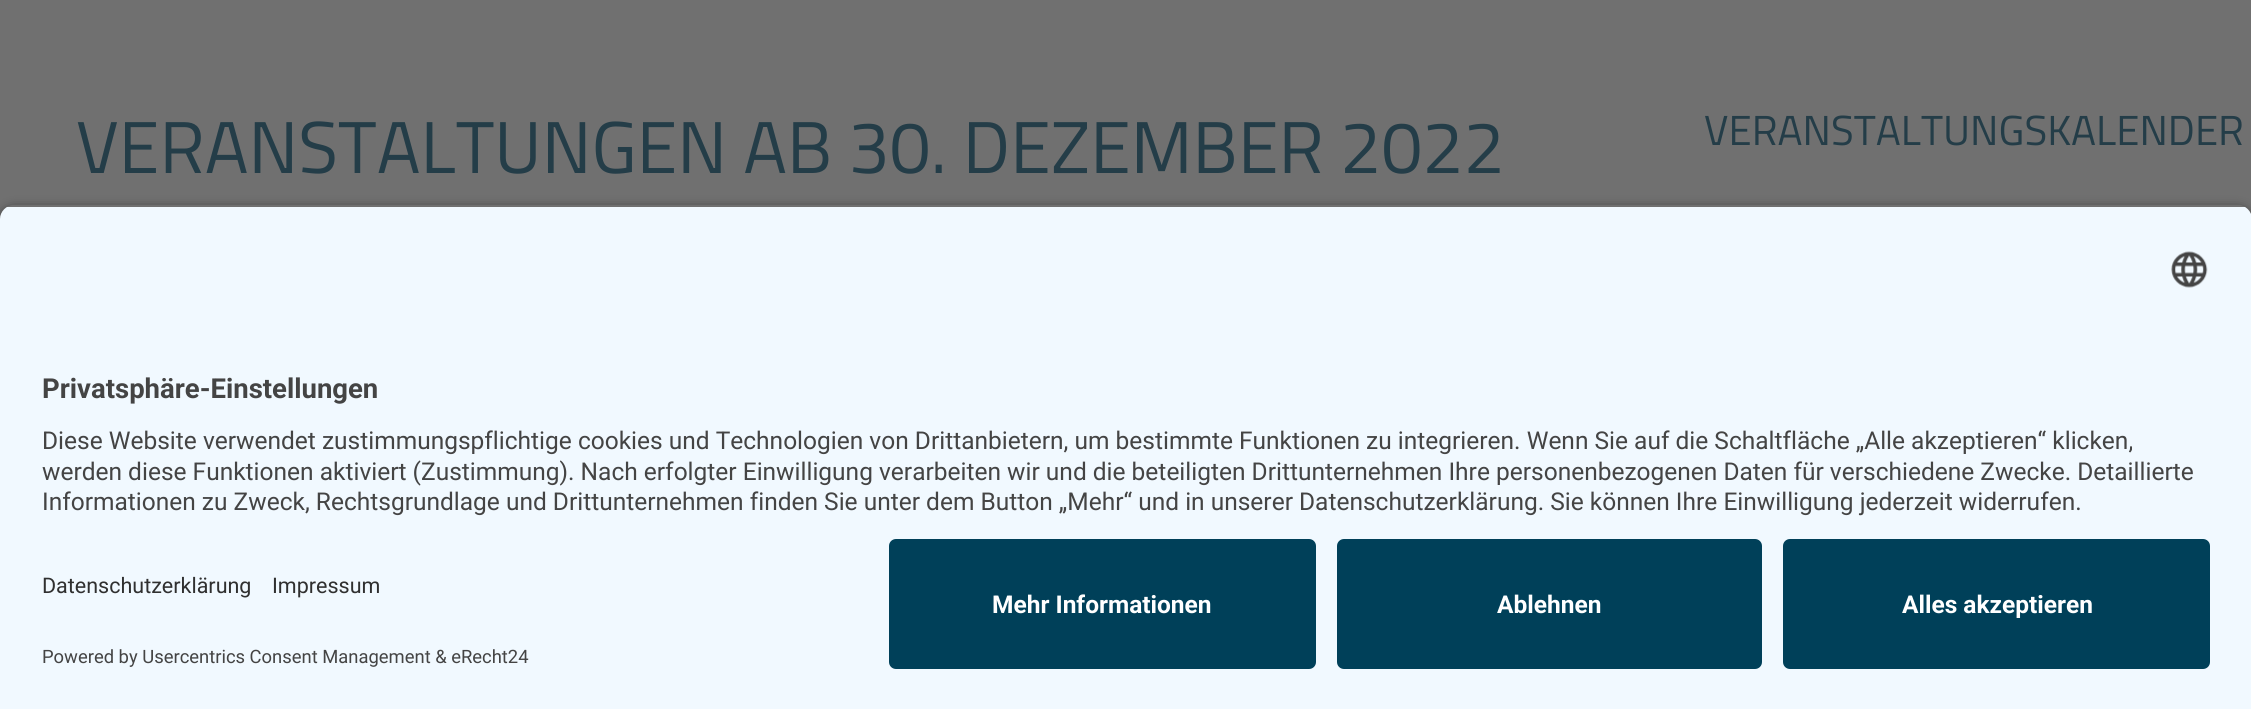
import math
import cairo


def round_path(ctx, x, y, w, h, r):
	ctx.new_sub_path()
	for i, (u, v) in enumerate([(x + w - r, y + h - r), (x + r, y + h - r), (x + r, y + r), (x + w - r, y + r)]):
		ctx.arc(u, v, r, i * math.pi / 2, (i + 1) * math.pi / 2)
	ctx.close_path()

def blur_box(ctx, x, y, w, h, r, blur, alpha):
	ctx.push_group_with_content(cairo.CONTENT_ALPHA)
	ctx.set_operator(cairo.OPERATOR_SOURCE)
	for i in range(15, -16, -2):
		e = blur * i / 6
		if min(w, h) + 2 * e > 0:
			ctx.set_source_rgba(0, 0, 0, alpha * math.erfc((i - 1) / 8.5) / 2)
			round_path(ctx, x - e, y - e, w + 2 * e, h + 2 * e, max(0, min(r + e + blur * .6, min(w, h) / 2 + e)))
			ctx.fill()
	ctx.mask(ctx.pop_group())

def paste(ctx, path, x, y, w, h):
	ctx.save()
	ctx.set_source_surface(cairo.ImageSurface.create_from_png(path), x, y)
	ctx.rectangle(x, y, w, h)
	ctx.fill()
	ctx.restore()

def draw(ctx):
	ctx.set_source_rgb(0.439, 0.439, 0.439)
	ctx.paint()
	ctx.select_font_face('Titillium Web')
	ctx.set_font_size(73.5)
	ctx.set_source_rgb(0.141, 0.239, 0.282)
	ctx.move_to(76, 173)
	ctx.show_text('VERANSTALTUNGEN AB 30. DEZEMBER 2022')
	ctx.set_font_size(42)
	ctx.move_to(1704, 145)
	ctx.show_text('VERANSTALTUNGSKALENDER')
	ctx.save()
	ctx.set_fill_rule(cairo.FILL_RULE_EVEN_ODD)
	ctx.new_path()
	ctx.move_to(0, 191)
	ctx.line_to(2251, 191)
	ctx.line_to(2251, 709)
	ctx.line_to(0, 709)
	ctx.close_path()
	ctx.move_to(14, 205)
	ctx.line_to(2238, 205)
	ctx.curve_to(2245.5, 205, 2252, 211.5, 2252, 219)
	ctx.line_to(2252, 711)
	ctx.line_to(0, 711)
	ctx.line_to(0, 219)
	ctx.curve_to(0, 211.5, 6.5, 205, 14, 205)
	ctx.close_path()
	ctx.clip()
	ctx.set_source_rgb(0, 0, 0)
	blur_box(ctx, 0, 210, 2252, 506, 14, 6, 0.8)
	ctx.restore()
	ctx.save()
	ctx.new_path()
	ctx.move_to(14, 205)
	ctx.line_to(2238, 205)
	ctx.curve_to(2245.5, 205, 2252, 211.5, 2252, 219)
	ctx.line_to(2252, 525)
	ctx.line_to(0, 525)
	ctx.line_to(0, 219)
	ctx.curve_to(0, 211.5, 6.5, 205, 14, 205)
	ctx.close_path()
	ctx.clip()
	ctx.set_source_rgb(0.945, 0.973, 1)
	ctx.rectangle(0, 207, 2251, 318)
	ctx.fill()
	ctx.restore()
	paste(ctx, 'media/1.png', 2171, 251, 37, 37)
	ctx.select_font_face('Roboto', cairo.FONT_SLANT_NORMAL, cairo.FONT_WEIGHT_BOLD)
	ctx.set_font_size(27.5)
	ctx.set_source_rgb(0.267, 0.267, 0.267)
	ctx.move_to(42, 398)
	ctx.show_text('Privatsphäre-Einstellungen')
	ctx.select_font_face('Roboto')
	ctx.set_font_size(24.5)
	for x, y, s in [
		(42, 449, 'Diese Website verwendet zustimmungspflichtige cookies und Technologien von Drittanbietern, um bestimmte Funktionen zu integrieren. Wenn Sie auf die Schaltfläche „Alle akzeptieren“ klicken,'),
		(42, 480, 'werden diese Funktionen aktiviert (Zustimmung). Nach erfolgter Einwilligung verarbeiten wir und die beteiligten Drittunternehmen Ihre personenbezogenen Daten für verschiedene Zwecke. Detaillierte'),
		(42, 510, 'Informationen zu Zweck, Rechtsgrundlage und Drittunternehmen finden Sie unter dem Button „Mehr“ und in unserer Datenschutzerklärung. Sie können Ihre Einwilligung jederzeit widerrufen.'),
	]:
		ctx.move_to(x, y)
		ctx.show_text(s)
	ctx.set_source_rgb(0.945, 0.973, 1)
	ctx.rectangle(0, 525, 2251, 184)
	ctx.fill()
	ctx.set_font_size(21.5)
	ctx.set_source_rgb(0.188, 0.188, 0.188)
	ctx.move_to(42, 593)
	ctx.show_text('Datenschutzerklärung')
	ctx.move_to(272, 593)
	ctx.show_text('Impressum')
	ctx.set_font_size(18.4)
	ctx.set_source_rgb(0.267, 0.267, 0.267)
	ctx.move_to(42, 663)
	ctx.show_text('Powered by Usercentrics Consent Management & eRecht24')
	ctx.set_source_rgb(0, 0.251, 0.349)
	round_path(ctx, 889, 539, 427, 130, 7)
	ctx.fill()
	ctx.select_font_face('Roboto', cairo.FONT_SLANT_NORMAL, cairo.FONT_WEIGHT_BOLD)
	ctx.set_font_size(24.5)
	ctx.set_source_rgb(1, 1, 1)
	ctx.move_to(992, 613)
	ctx.show_text('Mehr Informationen')
	ctx.set_source_rgb(0, 0.251, 0.349)
	round_path(ctx, 1337, 539, 425, 130, 7)
	ctx.fill()
	ctx.set_source_rgb(1, 1, 1)
	ctx.move_to(1497, 613)
	ctx.show_text('Ablehnen')
	ctx.set_source_rgb(0, 0.251, 0.349)
	round_path(ctx, 1783, 539, 427, 130, 7)
	ctx.fill()
	ctx.set_source_rgb(1, 1, 1)
	ctx.move_to(1902, 613)
	ctx.show_text('Alles akzeptieren')


surface = cairo.ImageSurface(cairo.FORMAT_RGB24, 2251, 709)
ctx = cairo.Context(surface)
options = cairo.FontOptions()
options.set_hint_metrics(cairo.HINT_METRICS_OFF)
options.set_hint_style(cairo.HINT_STYLE_NONE)
ctx.set_font_options(options)
ctx.set_miter_limit(4)
draw(ctx)
surface.write_to_png('image.png')
